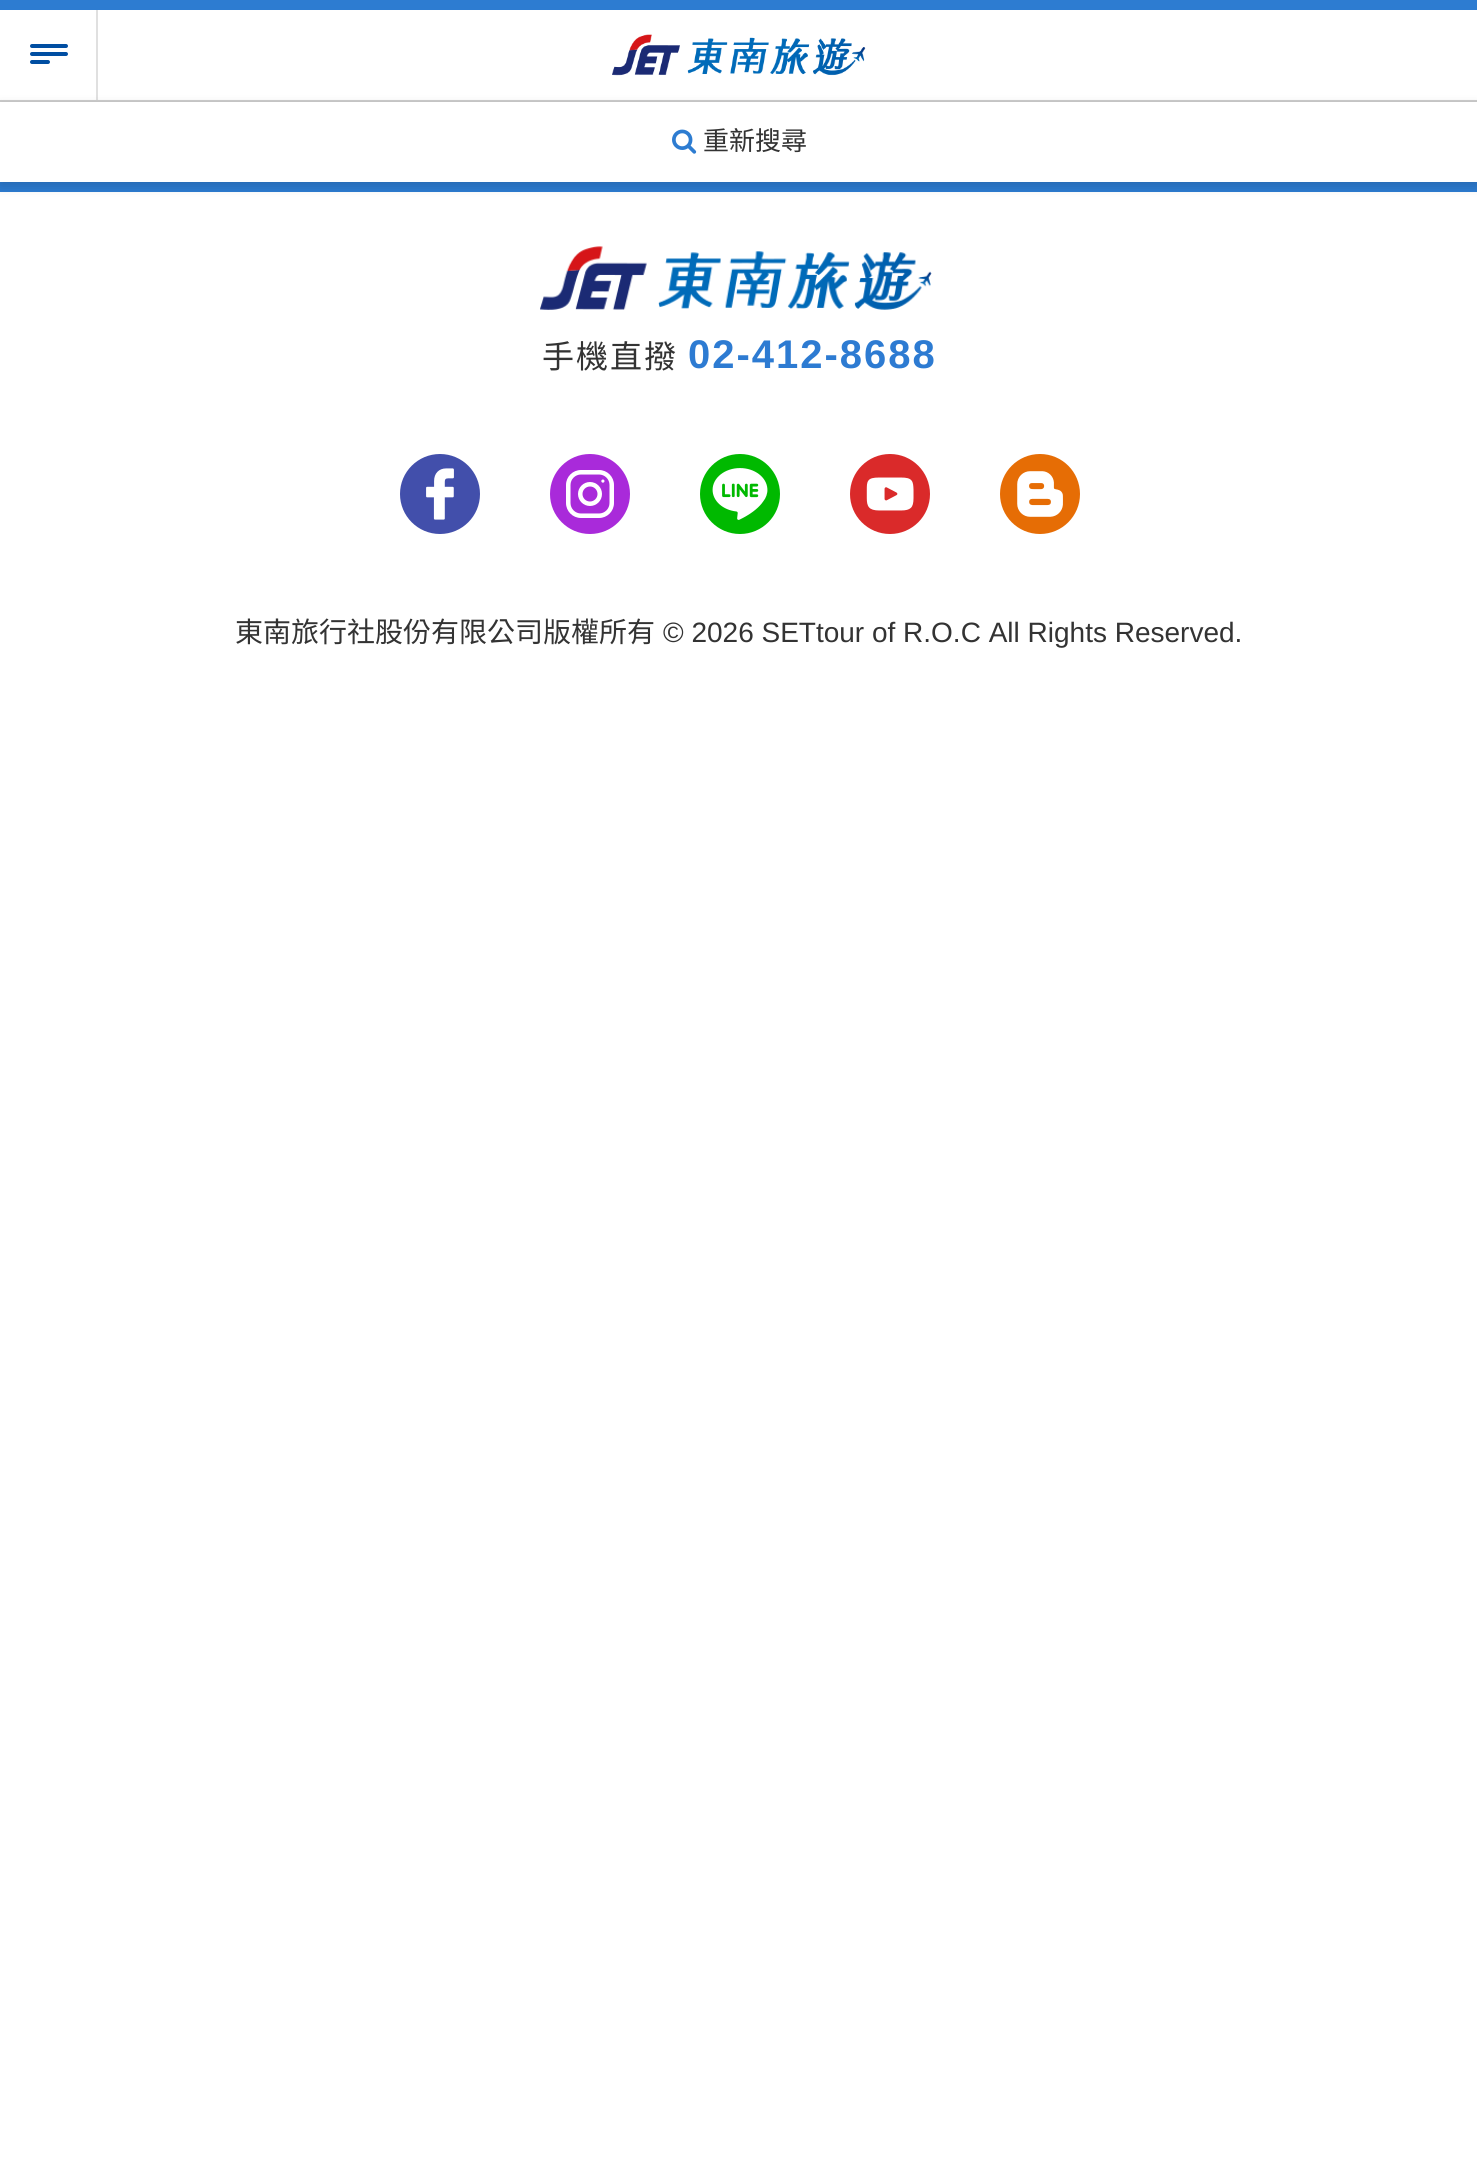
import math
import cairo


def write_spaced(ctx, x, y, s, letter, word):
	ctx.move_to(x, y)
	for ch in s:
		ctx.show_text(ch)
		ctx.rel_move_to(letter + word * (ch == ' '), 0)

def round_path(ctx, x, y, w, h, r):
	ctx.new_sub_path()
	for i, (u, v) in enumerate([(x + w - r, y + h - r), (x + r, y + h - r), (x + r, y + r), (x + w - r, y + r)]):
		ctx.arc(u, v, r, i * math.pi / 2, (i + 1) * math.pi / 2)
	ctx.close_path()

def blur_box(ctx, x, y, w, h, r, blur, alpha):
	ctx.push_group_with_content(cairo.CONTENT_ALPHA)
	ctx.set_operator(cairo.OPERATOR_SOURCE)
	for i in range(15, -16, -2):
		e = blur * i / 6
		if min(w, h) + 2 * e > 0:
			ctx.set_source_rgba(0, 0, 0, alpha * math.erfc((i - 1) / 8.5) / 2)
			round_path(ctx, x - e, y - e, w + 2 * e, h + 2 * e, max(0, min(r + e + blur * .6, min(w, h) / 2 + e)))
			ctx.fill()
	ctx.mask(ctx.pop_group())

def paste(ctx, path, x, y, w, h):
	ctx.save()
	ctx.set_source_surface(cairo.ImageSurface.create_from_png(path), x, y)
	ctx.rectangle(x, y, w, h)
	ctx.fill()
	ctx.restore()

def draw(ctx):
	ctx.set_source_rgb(1, 1, 1)
	ctx.paint()
	ctx.set_source_rgb(0.176, 0.486, 0.82)
	ctx.rectangle(0, 0, 1477, 10)
	ctx.fill()
	ctx.set_source_rgb(0.8, 0.8, 0.8)
	ctx.rectangle(0, 100, 1477, 2)
	ctx.fill()
	ctx.set_source_rgb(0.878, 0.878, 0.878)
	ctx.rectangle(96, 10, 2, 90)
	ctx.fill()
	ctx.set_source_rgb(0, 0.306, 0.635)
	round_path(ctx, 30, 44, 38, 4, 2)
	ctx.fill()
	round_path(ctx, 30, 52, 38, 4, 2)
	ctx.fill()
	round_path(ctx, 30, 60, 20, 4, 2)
	ctx.fill()
	paste(ctx, 'media/1.png', 612, 34, 254, 42)
	ctx.set_source_rgb(0.176, 0.486, 0.82)
	ctx.rectangle(0, 182, 1477, 10)
	ctx.fill()
	ctx.save()
	ctx.set_fill_rule(cairo.FILL_RULE_EVEN_ODD)
	ctx.new_path()
	ctx.move_to(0, 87)
	ctx.line_to(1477, 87)
	ctx.line_to(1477, 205)
	ctx.line_to(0, 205)
	ctx.close_path()
	ctx.move_to(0, 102)
	ctx.line_to(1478, 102)
	ctx.line_to(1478, 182)
	ctx.line_to(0, 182)
	ctx.close_path()
	ctx.clip()
	ctx.set_source_rgb(0, 0, 0)
	blur_box(ctx, 0, 106, 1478, 80, 0, 6, 0.16)
	ctx.restore()
	paste(ctx, 'media/2.png', 672, 129, 25, 25)
	ctx.select_font_face('Noto Sans CJK TC')
	ctx.set_font_size(26)
	ctx.set_source_rgb(0.2, 0.2, 0.2)
	ctx.move_to(703, 150)
	ctx.show_text('重新搜尋')
	paste(ctx, 'media/3.png', 540, 246, 392, 64)
	ctx.set_font_size(32)
	write_spaced(ctx, 542, 368, '手機直撥', 2, 0)
	ctx.select_font_face('Liberation Sans', cairo.FONT_SLANT_NORMAL, cairo.FONT_WEIGHT_BOLD)
	ctx.set_font_size(40)
	ctx.set_source_rgb(0.176, 0.482, 0.824)
	write_spaced(ctx, 688, 368, '02-412-8688', 2, 0)
	ctx.set_source_rgb(0.259, 0.31, 0.671)
	ctx.new_path()
	ctx.arc(440, 494, 40, 0, 2 * math.pi)
	ctx.fill()
	paste(ctx, 'media/4.png', 426, 468, 28, 52)
	ctx.set_source_rgb(0.663, 0.165, 0.855)
	ctx.arc(590, 494, 40, 0, 2 * math.pi)
	ctx.fill()
	paste(ctx, 'media/5.png', 566, 470, 48, 48)
	ctx.set_source_rgb(0, 0.725, 0)
	ctx.arc(740, 494, 40, 0, 2 * math.pi)
	ctx.fill()
	paste(ctx, 'media/6.png', 712, 468, 56, 52)
	ctx.set_source_rgb(0.855, 0.165, 0.165)
	ctx.arc(890, 494, 40, 0, 2 * math.pi)
	ctx.fill()
	paste(ctx, 'media/7.png', 866, 477, 48, 34)
	ctx.set_source_rgb(0.902, 0.427, 0.02)
	ctx.arc(1040, 494, 40, 0, 2 * math.pi)
	ctx.fill()
	paste(ctx, 'media/8.png', 1017, 471, 46, 46)
	ctx.select_font_face('Noto Sans CJK TC')
	ctx.set_font_size(28)
	ctx.set_source_rgb(0.2, 0.2, 0.2)
	ctx.move_to(235, 642)
	ctx.show_text('東南旅行社股份有限公司版權所有')
	ctx.select_font_face('Liberation Sans')
	ctx.move_to(663, 642)
	ctx.show_text('© 2026 SETtour of R.O.C All Rights Reserved.')


surface = cairo.ImageSurface(cairo.FORMAT_RGB24, 1477, 2179)
ctx = cairo.Context(surface)
options = cairo.FontOptions()
options.set_hint_metrics(cairo.HINT_METRICS_OFF)
options.set_hint_style(cairo.HINT_STYLE_NONE)
ctx.set_font_options(options)
ctx.set_miter_limit(4)
draw(ctx)
surface.write_to_png('image.png')
